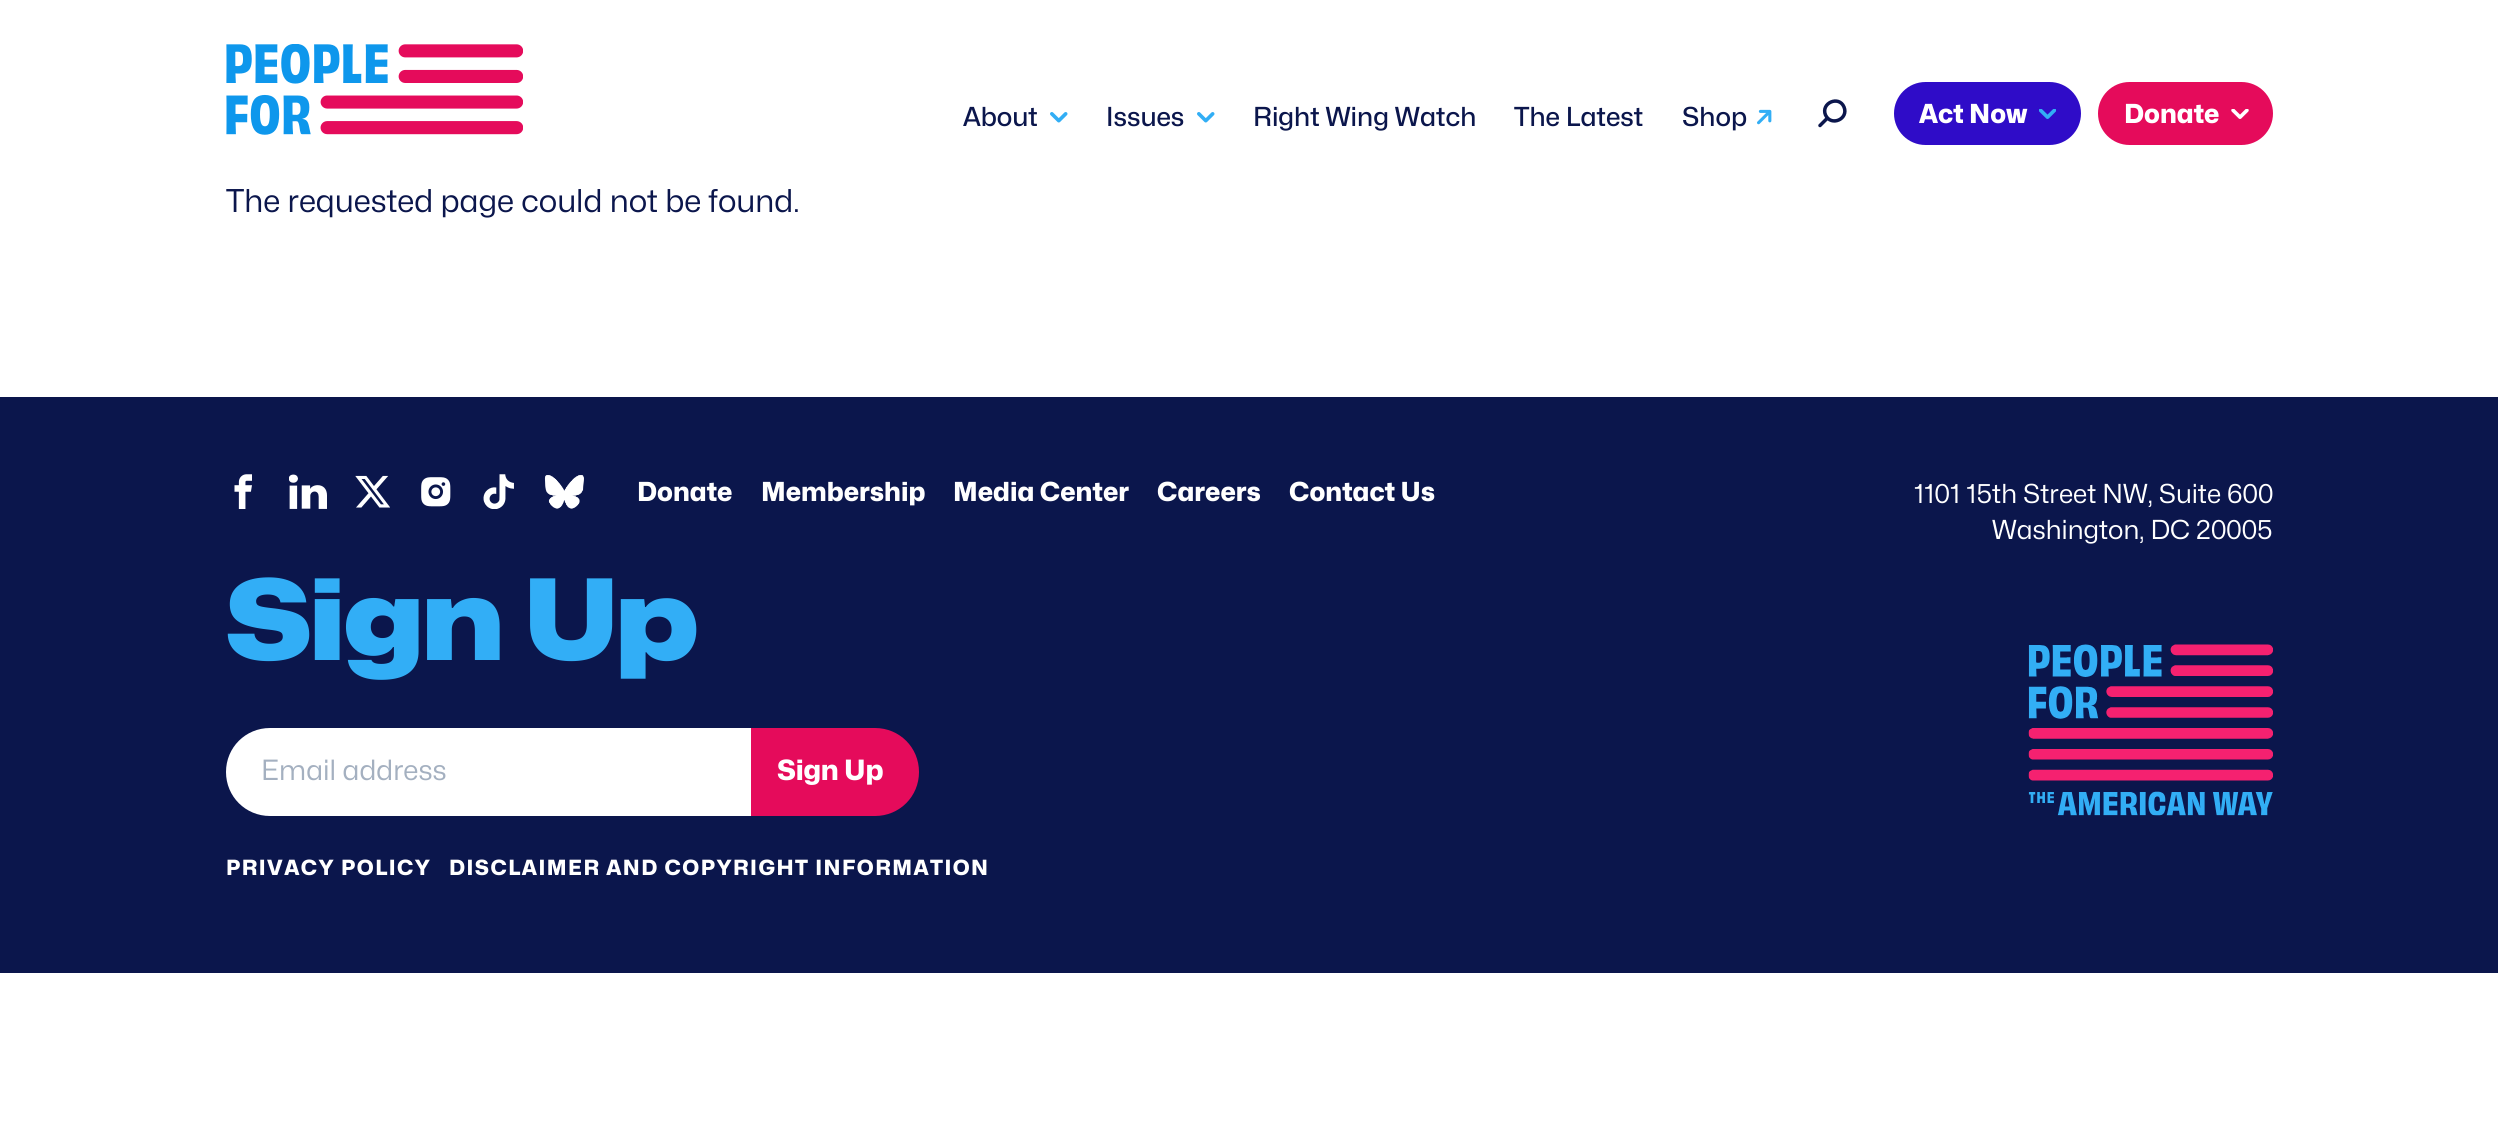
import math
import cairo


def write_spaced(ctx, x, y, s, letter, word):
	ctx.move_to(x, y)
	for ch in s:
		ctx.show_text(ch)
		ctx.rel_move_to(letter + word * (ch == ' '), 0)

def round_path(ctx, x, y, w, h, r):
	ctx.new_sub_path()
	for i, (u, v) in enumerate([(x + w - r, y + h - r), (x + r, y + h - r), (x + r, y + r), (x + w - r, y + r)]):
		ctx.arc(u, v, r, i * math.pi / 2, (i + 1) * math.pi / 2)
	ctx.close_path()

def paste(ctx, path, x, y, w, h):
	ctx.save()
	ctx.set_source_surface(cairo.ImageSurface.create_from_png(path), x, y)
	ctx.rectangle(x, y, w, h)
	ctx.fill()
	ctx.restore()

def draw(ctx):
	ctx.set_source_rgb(1, 1, 1)
	ctx.paint()
	paste(ctx, 'media/1.png', 226, 44, 297, 91)
	ctx.select_font_face('Mona Sans Medium')
	ctx.set_font_size(26.25)
	ctx.set_source_rgb(0.043, 0.086, 0.298)
	ctx.move_to(963, 126)
	ctx.show_text('About')
	paste(ctx, 'media/2.png', 1050, 112, 18, 11)
	ctx.move_to(1106, 126)
	ctx.show_text('Issues')
	paste(ctx, 'media/2.png', 1197, 112, 18, 11)
	for x, y, s in [
		(1253, 126, 'Right Wing Watch'),
		(1514, 126, 'The Latest'),
		(1682, 126, 'Shop'),
	]:
		ctx.move_to(x, y)
		ctx.show_text(s)
	paste(ctx, 'media/3.png', 1757, 109, 15, 16)
	ctx.new_path()
	ctx.move_to(1825.5, 115)
	ctx.curve_to(1831, 127, 1849, 119, 1844, 107)
	ctx.curve_to(1839, 95, 1820.5, 103, 1825.5, 115)
	ctx.close_path()
	ctx.set_line_width(3.5)
	ctx.stroke()
	ctx.new_path()
	ctx.move_to(1827, 118.5)
	ctx.line_to(1820, 125.5)
	ctx.set_line_cap(cairo.LINE_CAP_ROUND)
	ctx.stroke()
	ctx.set_source_rgb(0.184, 0.047, 0.784)
	round_path(ctx, 1894, 82, 187, 63, 31.5)
	ctx.fill()
	ctx.select_font_face('Mona Sans ExtraBold')
	ctx.set_source_rgb(1, 1, 1)
	ctx.move_to(1919, 123)
	ctx.show_text('Act Now')
	paste(ctx, 'media/4.png', 2039, 109, 17, 10)
	ctx.set_source_rgb(0.898, 0.043, 0.357)
	round_path(ctx, 2098, 82, 175, 63, 31.5)
	ctx.fill()
	ctx.set_source_rgb(1, 1, 1)
	ctx.move_to(2124, 123)
	ctx.show_text('Donate')
	paste(ctx, 'media/5.png', 2231, 109, 18, 10)
	ctx.select_font_face('Mona Sans')
	ctx.set_font_size(31.5)
	ctx.set_source_rgb(0.043, 0.086, 0.298)
	ctx.move_to(226, 212)
	ctx.show_text('The requested page could not be found.')
	ctx.rectangle(0, 397, 2498, 576)
	ctx.fill()
	paste(ctx, 'media/6.png', 234, 474, 18, 35)
	paste(ctx, 'media/7.png', 289, 474, 38, 35)
	paste(ctx, 'media/8.png', 355, 475, 35, 33)
	paste(ctx, 'media/9.png', 421, 477, 30, 30)
	paste(ctx, 'media/10.png', 483, 474, 31, 35)
	paste(ctx, 'media/11.png', 544, 475, 40, 34)
	ctx.select_font_face('Mona Sans ExtraBold')
	ctx.set_font_size(26.25)
	ctx.set_source_rgb(1, 1, 1)
	for x, y, s in [
		(637, 501, 'Donate'),
		(761, 501, 'Membership'),
		(953, 501, 'Media Center'),
		(1157, 501, 'Careers'),
		(1289, 501, 'Contact Us'),
	]:
		ctx.move_to(x, y)
		ctx.show_text(s)
	ctx.select_font_face('Mona Sans')
	ctx.move_to(1914, 503)
	ctx.show_text('1101 15th Street NW, Suite 600')
	ctx.move_to(1992, 539)
	ctx.show_text('Washington, DC 20005')
	paste(ctx, 'media/12.png', 2028, 644, 245, 172)
	ctx.select_font_face('Mona Sans Black')
	ctx.set_font_size(112)
	ctx.set_source_rgb(0.196, 0.682, 0.961)
	write_spaced(ctx, 226, 660, 'Sign Up', -1, 0)
	ctx.set_source_rgb(1, 1, 1)
	ctx.new_path()
	ctx.move_to(270, 728)
	ctx.line_to(751, 728)
	ctx.line_to(751, 816)
	ctx.line_to(270, 816)
	ctx.curve_to(245.5, 816, 226, 796.5, 226, 772)
	ctx.curve_to(226, 747.5, 245.5, 728, 270, 728)
	ctx.close_path()
	ctx.fill()
	ctx.select_font_face('Mona Sans')
	ctx.set_font_size(28)
	ctx.set_source_rgb(0.643, 0.69, 0.753)
	ctx.move_to(261, 780)
	ctx.show_text('Email address')
	ctx.set_source_rgb(0.898, 0.043, 0.357)
	ctx.new_path()
	ctx.move_to(751, 728)
	ctx.line_to(875, 728)
	ctx.curve_to(899.5, 728, 919, 747.5, 919, 772)
	ctx.curve_to(919, 796.5, 899.5, 816, 875, 816)
	ctx.line_to(751, 816)
	ctx.close_path()
	ctx.fill()
	ctx.select_font_face('Mona Sans ExtraBold')
	ctx.set_source_rgb(1, 1, 1)
	write_spaced(ctx, 777, 780, 'Sign Up', -0.25, 0)
	ctx.set_font_size(21)
	write_spaced(ctx, 226, 875, 'PRIVACY POLICY', 1.45, 0)
	write_spaced(ctx, 449, 875, 'DISCLAIMER AND COPYRIGHT INFORMATION', 1.45, 0)


surface = cairo.ImageSurface(cairo.FORMAT_RGB24, 2498, 1134)
ctx = cairo.Context(surface)
options = cairo.FontOptions()
options.set_hint_metrics(cairo.HINT_METRICS_OFF)
options.set_hint_style(cairo.HINT_STYLE_NONE)
ctx.set_font_options(options)
ctx.set_miter_limit(4)
draw(ctx)
surface.write_to_png('image.png')
